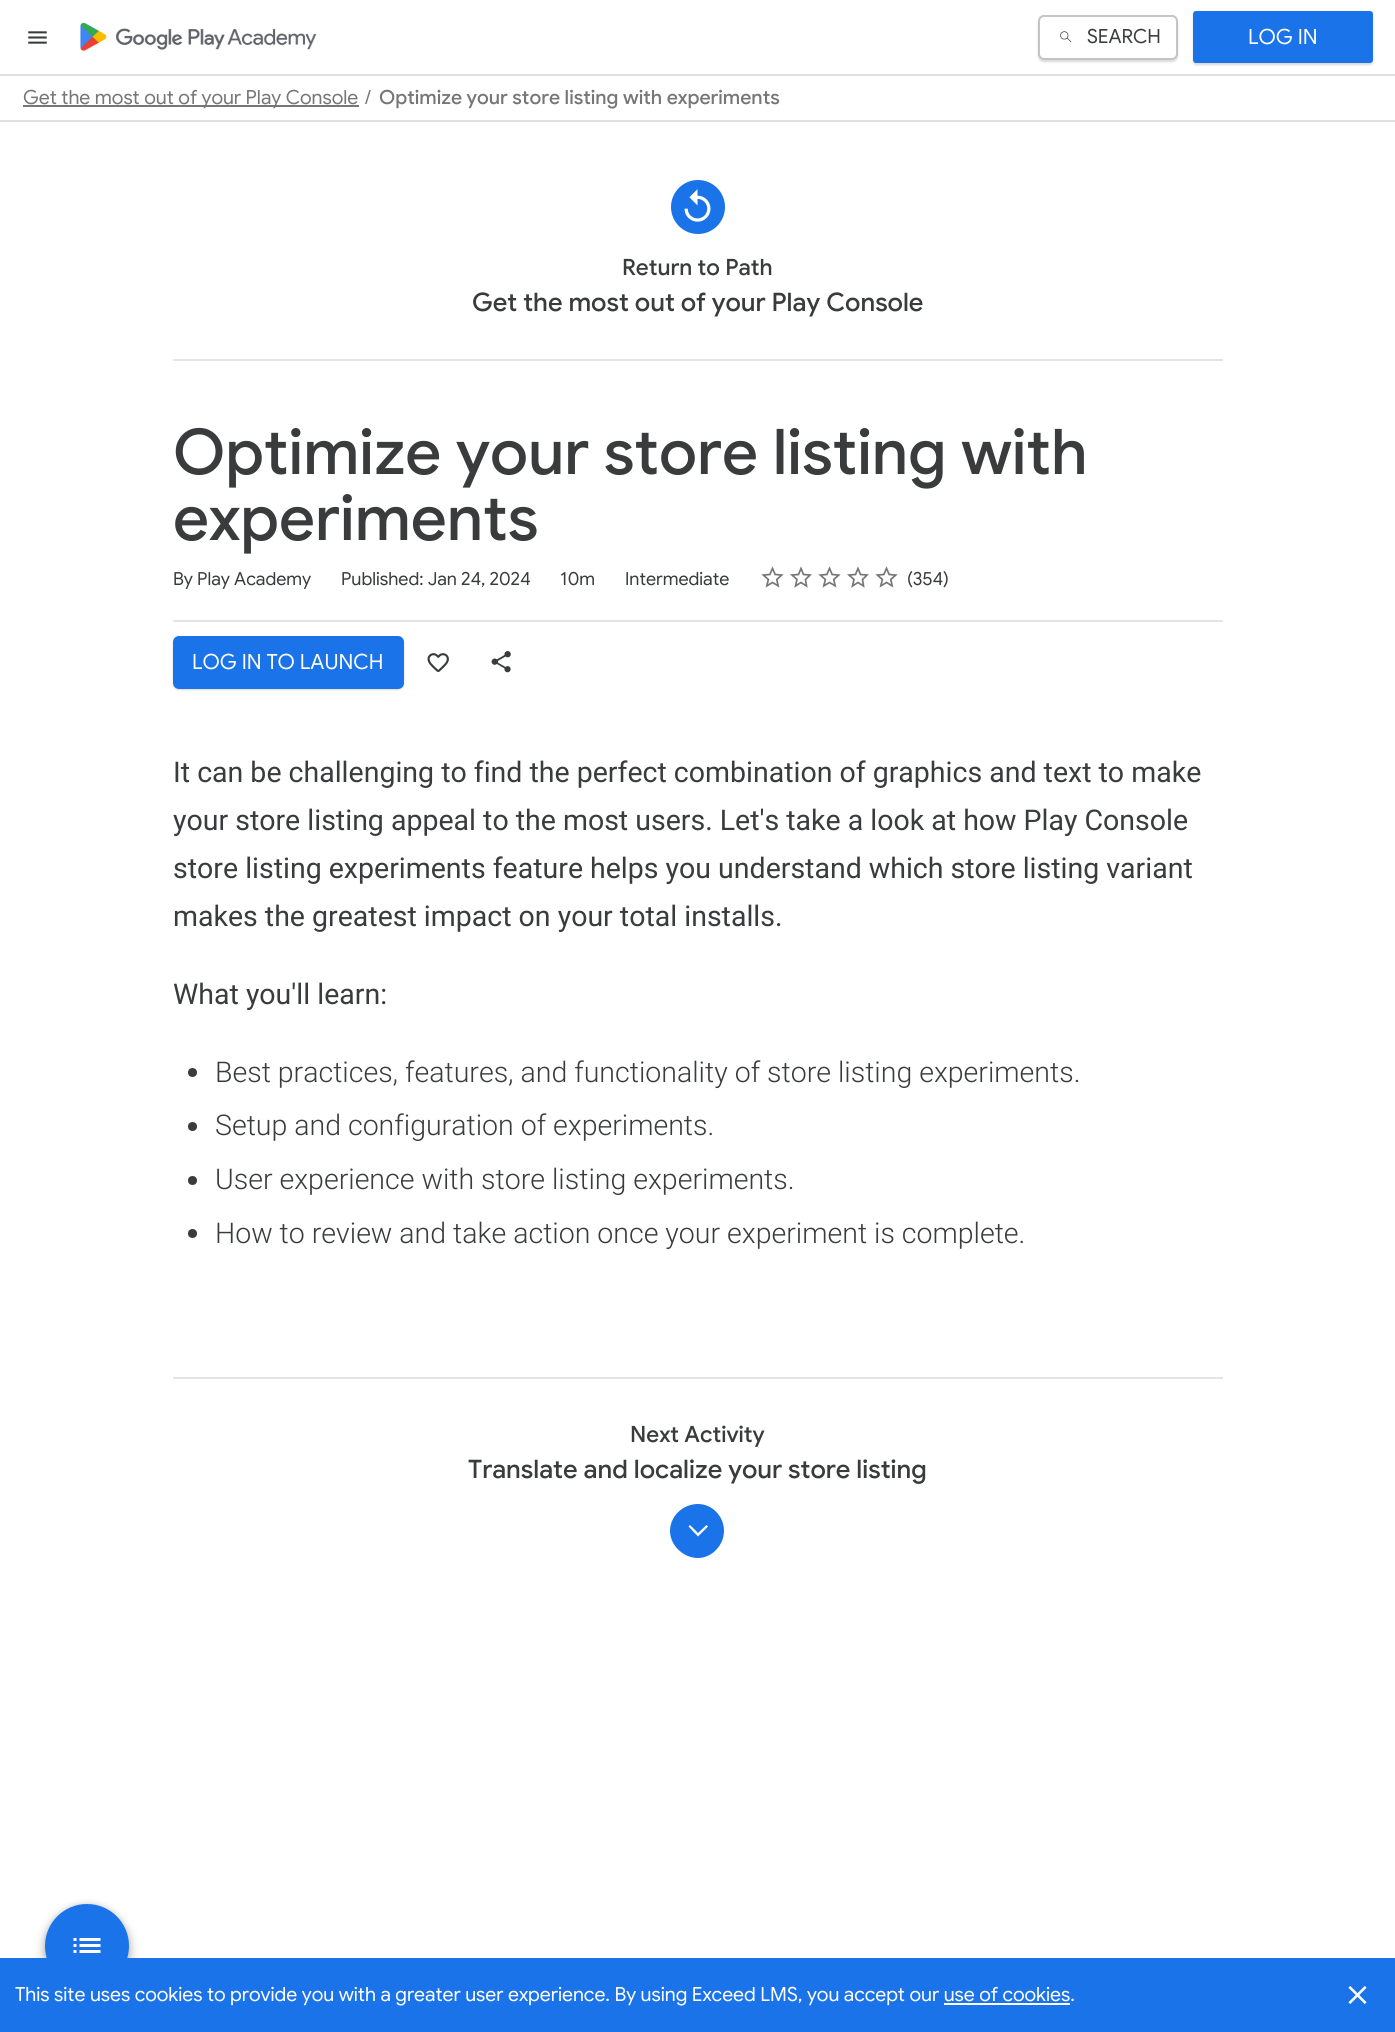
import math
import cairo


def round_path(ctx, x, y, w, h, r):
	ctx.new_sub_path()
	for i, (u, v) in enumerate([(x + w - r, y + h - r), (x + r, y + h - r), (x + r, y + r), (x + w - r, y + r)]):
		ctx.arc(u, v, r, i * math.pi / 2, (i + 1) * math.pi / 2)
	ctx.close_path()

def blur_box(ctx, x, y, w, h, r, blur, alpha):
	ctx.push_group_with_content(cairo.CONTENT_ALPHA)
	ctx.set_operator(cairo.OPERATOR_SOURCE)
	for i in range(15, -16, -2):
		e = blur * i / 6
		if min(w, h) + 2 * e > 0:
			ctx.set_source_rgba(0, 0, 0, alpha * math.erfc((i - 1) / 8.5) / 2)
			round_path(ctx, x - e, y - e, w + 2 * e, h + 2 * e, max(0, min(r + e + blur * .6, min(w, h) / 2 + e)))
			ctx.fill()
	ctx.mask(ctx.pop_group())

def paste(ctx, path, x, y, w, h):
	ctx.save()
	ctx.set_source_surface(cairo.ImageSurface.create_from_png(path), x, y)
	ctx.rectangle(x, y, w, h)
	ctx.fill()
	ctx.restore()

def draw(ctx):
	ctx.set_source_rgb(1, 1, 1)
	ctx.paint()
	ctx.set_source_rgb(0.875, 0.875, 0.875)
	ctx.rectangle(0, 74, 1395, 2)
	ctx.fill()
	paste(ctx, 'media/1.png', 28, 31, 19, 13)
	paste(ctx, 'media/2.png', 80, 22, 237, 29)
	ctx.save()
	ctx.set_fill_rule(cairo.FILL_RULE_EVEN_ODD)
	ctx.new_path()
	ctx.move_to(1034, 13)
	ctx.line_to(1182, 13)
	ctx.line_to(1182, 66)
	ctx.line_to(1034, 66)
	ctx.close_path()
	ctx.move_to(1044, 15)
	ctx.line_to(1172, 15)
	ctx.curve_to(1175.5, 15, 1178, 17.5, 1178, 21)
	ctx.line_to(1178, 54)
	ctx.curve_to(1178, 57.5, 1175.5, 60, 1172, 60)
	ctx.line_to(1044, 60)
	ctx.curve_to(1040.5, 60, 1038, 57.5, 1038, 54)
	ctx.line_to(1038, 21)
	ctx.curve_to(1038, 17.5, 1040.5, 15, 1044, 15)
	ctx.close_path()
	ctx.clip()
	ctx.set_source_rgb(0, 0, 0)
	blur_box(ctx, 1038, 17, 140, 45, 6, 1, 0.15)
	ctx.restore()
	round_path(ctx, 1039, 16, 138, 43, 5)
	ctx.set_source_rgba(0.224, 0.231, 0.239, 0.3)
	ctx.stroke()
	paste(ctx, 'media/3.png', 1060, 31, 12, 12)
	ctx.select_font_face('Google Sans')
	ctx.set_font_size(19.5)
	ctx.set_source_rgb(0.224, 0.231, 0.239)
	ctx.move_to(1087, 43)
	ctx.show_text('SEARCH')
	ctx.set_source_rgb(0, 0, 0)
	blur_box(ctx, 1193, 12, 180, 53, 3, 1, 0.15)
	ctx.set_source_rgb(0.102, 0.451, 0.91)
	round_path(ctx, 1194, 12, 178, 50, 2)
	ctx.fill_preserve()
	ctx.stroke()
	ctx.set_font_size(21)
	ctx.set_source_rgb(1, 1, 1)
	ctx.move_to(1248, 44)
	ctx.show_text('LOG IN')
	ctx.set_source_rgb(0.878, 0.878, 0.878)
	ctx.rectangle(0, 120, 1395, 2)
	ctx.fill()
	ctx.set_source_rgb(0.463, 0.463, 0.463)
	ctx.rectangle(23, 105, 336, 2)
	ctx.fill()
	ctx.set_font_size(19.5)
	ctx.move_to(23, 104)
	ctx.show_text('Get the most out of your Play Console')
	ctx.move_to(365, 104)
	ctx.show_text('/')
	ctx.select_font_face('Google Sans Medium')
	ctx.move_to(379, 104)
	ctx.show_text('Optimize your store listing with experiments')
	ctx.set_source_rgb(0.894, 0.894, 0.894)
	ctx.rectangle(173, 359, 1050, 2)
	ctx.fill()
	ctx.set_source_rgb(0.102, 0.451, 0.91)
	ctx.arc(698, 207, 27, 0, 2 * math.pi)
	ctx.fill()
	paste(ctx, 'media/4.png', 684, 189, 27, 33)
	ctx.set_font_size(22.5)
	ctx.set_source_rgb(0.224, 0.231, 0.239)
	ctx.move_to(622, 275)
	ctx.show_text('Return to Path')
	ctx.set_font_size(25.5)
	ctx.move_to(472, 311)
	ctx.show_text('Get the most out of your Play Console')
	ctx.set_font_size(63)
	ctx.move_to(173, 474)
	ctx.show_text('Optimize your store listing with')
	ctx.move_to(173, 540)
	ctx.show_text('experiments')
	ctx.select_font_face('Google Sans')
	ctx.set_font_size(18)
	for x, y, s in [
		(173, 585, 'By Play Academy'),
		(341, 585, 'Published: Jan 24, 2024'),
		(560, 585, '10m'),
		(625, 585, 'Intermediate'),
	]:
		ctx.move_to(x, y)
		ctx.show_text(s)
	paste(ctx, 'media/5.png', 761, 566, 23, 22)
	ctx.new_path()
	ctx.move_to(795.5, 586)
	ctx.line_to(797, 579.5)
	ctx.line_to(792, 575)
	ctx.line_to(798.5, 574.5)
	ctx.line_to(801, 568.5)
	ctx.line_to(803.5, 574.5)
	ctx.line_to(810, 575)
	ctx.line_to(805.5, 579.5)
	ctx.line_to(806.5, 586)
	ctx.line_to(801, 582.5)
	ctx.close_path()
	ctx.set_source_rgb(0.463, 0.463, 0.463)
	ctx.set_line_width(1.7)
	ctx.stroke()
	paste(ctx, 'media/5.png', 818, 566, 23, 22)
	ctx.new_path()
	ctx.move_to(852.5, 586)
	ctx.line_to(854, 579.5)
	ctx.line_to(849, 575)
	ctx.line_to(855.5, 574.5)
	ctx.line_to(858, 568.5)
	ctx.line_to(860.5, 574.5)
	ctx.line_to(867, 575)
	ctx.line_to(862.5, 579.5)
	ctx.line_to(863.5, 586)
	ctx.line_to(858, 582.5)
	ctx.close_path()
	ctx.stroke()
	paste(ctx, 'media/5.png', 875, 566, 23, 22)
	ctx.set_source_rgb(0.224, 0.231, 0.239)
	ctx.move_to(907, 585)
	ctx.show_text('(354)')
	ctx.set_source_rgb(0.894, 0.894, 0.894)
	ctx.rectangle(173, 620, 1050, 2)
	ctx.fill()
	ctx.set_source_rgb(0, 0, 0)
	blur_box(ctx, 173, 638, 231, 52, 6, 1, 0.15)
	ctx.set_source_rgb(0.102, 0.451, 0.91)
	round_path(ctx, 174, 637, 229, 51, 5)
	ctx.fill_preserve()
	ctx.set_line_width(2)
	ctx.stroke()
	ctx.set_font_size(21)
	ctx.set_source_rgb(1, 1, 1)
	ctx.move_to(192, 669)
	ctx.show_text('LOG IN TO LAUNCH')
	paste(ctx, 'media/6.png', 427, 653, 22, 19)
	paste(ctx, 'media/7.png', 491, 651, 20, 22)
	ctx.select_font_face('Roboto')
	ctx.set_font_size(28.5)
	ctx.set_source_rgb(0.224, 0.231, 0.239)
	for x, y, s in [
		(173, 782, 'It can be challenging to find the perfect combination of graphics and text to make'),
		(173, 830, 'your store listing appeal to the most users. Let\'s take a look at how Play Console'),
		(173, 878, 'store listing experiments feature helps you understand which store listing variant'),
		(173, 926, 'makes the greatest impact on your total installs.'),
		(173, 1004, 'What you\'ll learn:'),
	]:
		ctx.move_to(x, y)
		ctx.show_text(s)
	ctx.new_path()
	ctx.arc(192.5, 1072.5, 4.5, 0, 2 * math.pi)
	ctx.fill()
	ctx.select_font_face('Roboto Light')
	ctx.move_to(215, 1082)
	ctx.show_text('Best practices, features, and functionality of store listing experiments.')
	ctx.new_path()
	ctx.arc(192.5, 1126.5, 4.5, 0, 2 * math.pi)
	ctx.fill()
	ctx.move_to(215, 1135)
	ctx.show_text('Setup and configuration of experiments.')
	ctx.new_path()
	ctx.arc(192.5, 1180.5, 4.5, 0, 2 * math.pi)
	ctx.fill()
	ctx.move_to(215, 1189)
	ctx.show_text('User experience with store listing experiments.')
	ctx.new_path()
	ctx.arc(192.5, 1233.5, 4.5, 0, 2 * math.pi)
	ctx.fill()
	ctx.move_to(215, 1243)
	ctx.show_text('How to review and take action once your experiment is complete.')
	ctx.set_source_rgb(0.894, 0.894, 0.894)
	ctx.rectangle(173, 1377, 1050, 2)
	ctx.fill()
	ctx.select_font_face('Google Sans Medium')
	ctx.set_font_size(22.5)
	ctx.set_source_rgb(0.224, 0.231, 0.239)
	ctx.move_to(630, 1442)
	ctx.show_text('Next Activity')
	ctx.set_font_size(25.5)
	ctx.move_to(468, 1478)
	ctx.show_text('Translate and localize your store listing')
	ctx.set_source_rgb(0.102, 0.451, 0.91)
	ctx.new_path()
	ctx.move_to(724, 1531)
	ctx.curve_to(724, 1545, 712, 1558, 698, 1558)
	ctx.curve_to(683, 1558, 670, 1545, 670, 1531)
	ctx.curve_to(670, 1516, 683, 1504, 698, 1504)
	ctx.curve_to(712, 1504, 724, 1516, 724, 1531)
	ctx.close_path()
	ctx.fill()
	ctx.set_source_rgb(1, 1, 1)
	ctx.new_path()
	ctx.move_to(708, 1526.5)
	ctx.line_to(706.5, 1525)
	ctx.line_to(698, 1533)
	ctx.line_to(690, 1525)
	ctx.line_to(688.5, 1526.5)
	ctx.line_to(698, 1536.5)
	ctx.close_path()
	ctx.fill()
	ctx.set_source_rgb(0, 0, 0)
	blur_box(ctx, 45, 1910, 84, 84, 42, 6, 0.28)
	blur_box(ctx, 45, 1904, 84, 84, 42, 3, 0.14)
	ctx.set_source_rgb(0.102, 0.451, 0.91)
	ctx.arc(87, 1946, 42, 0, 2 * math.pi)
	ctx.fill()
	paste(ctx, 'media/8.png', 73, 1938, 28, 15)
	ctx.rectangle(0, 1958, 1395, 74)
	ctx.fill()
	ctx.select_font_face('Google Sans')
	ctx.set_font_size(19.5)
	ctx.set_source_rgb(1, 1, 1)
	ctx.move_to(15, 2001)
	ctx.show_text('This site uses cookies to provide you with a greater user experience. By using Exceed LMS, you accept our use of cookies.')
	ctx.rectangle(944, 2003, 126, 2)
	ctx.fill()
	paste(ctx, 'media/9.png', 1348, 1986, 19, 18)


surface = cairo.ImageSurface(cairo.FORMAT_RGB24, 1395, 2032)
ctx = cairo.Context(surface)
options = cairo.FontOptions()
options.set_hint_metrics(cairo.HINT_METRICS_OFF)
options.set_hint_style(cairo.HINT_STYLE_NONE)
ctx.set_font_options(options)
ctx.set_miter_limit(4)
draw(ctx)
surface.write_to_png('image.png')
